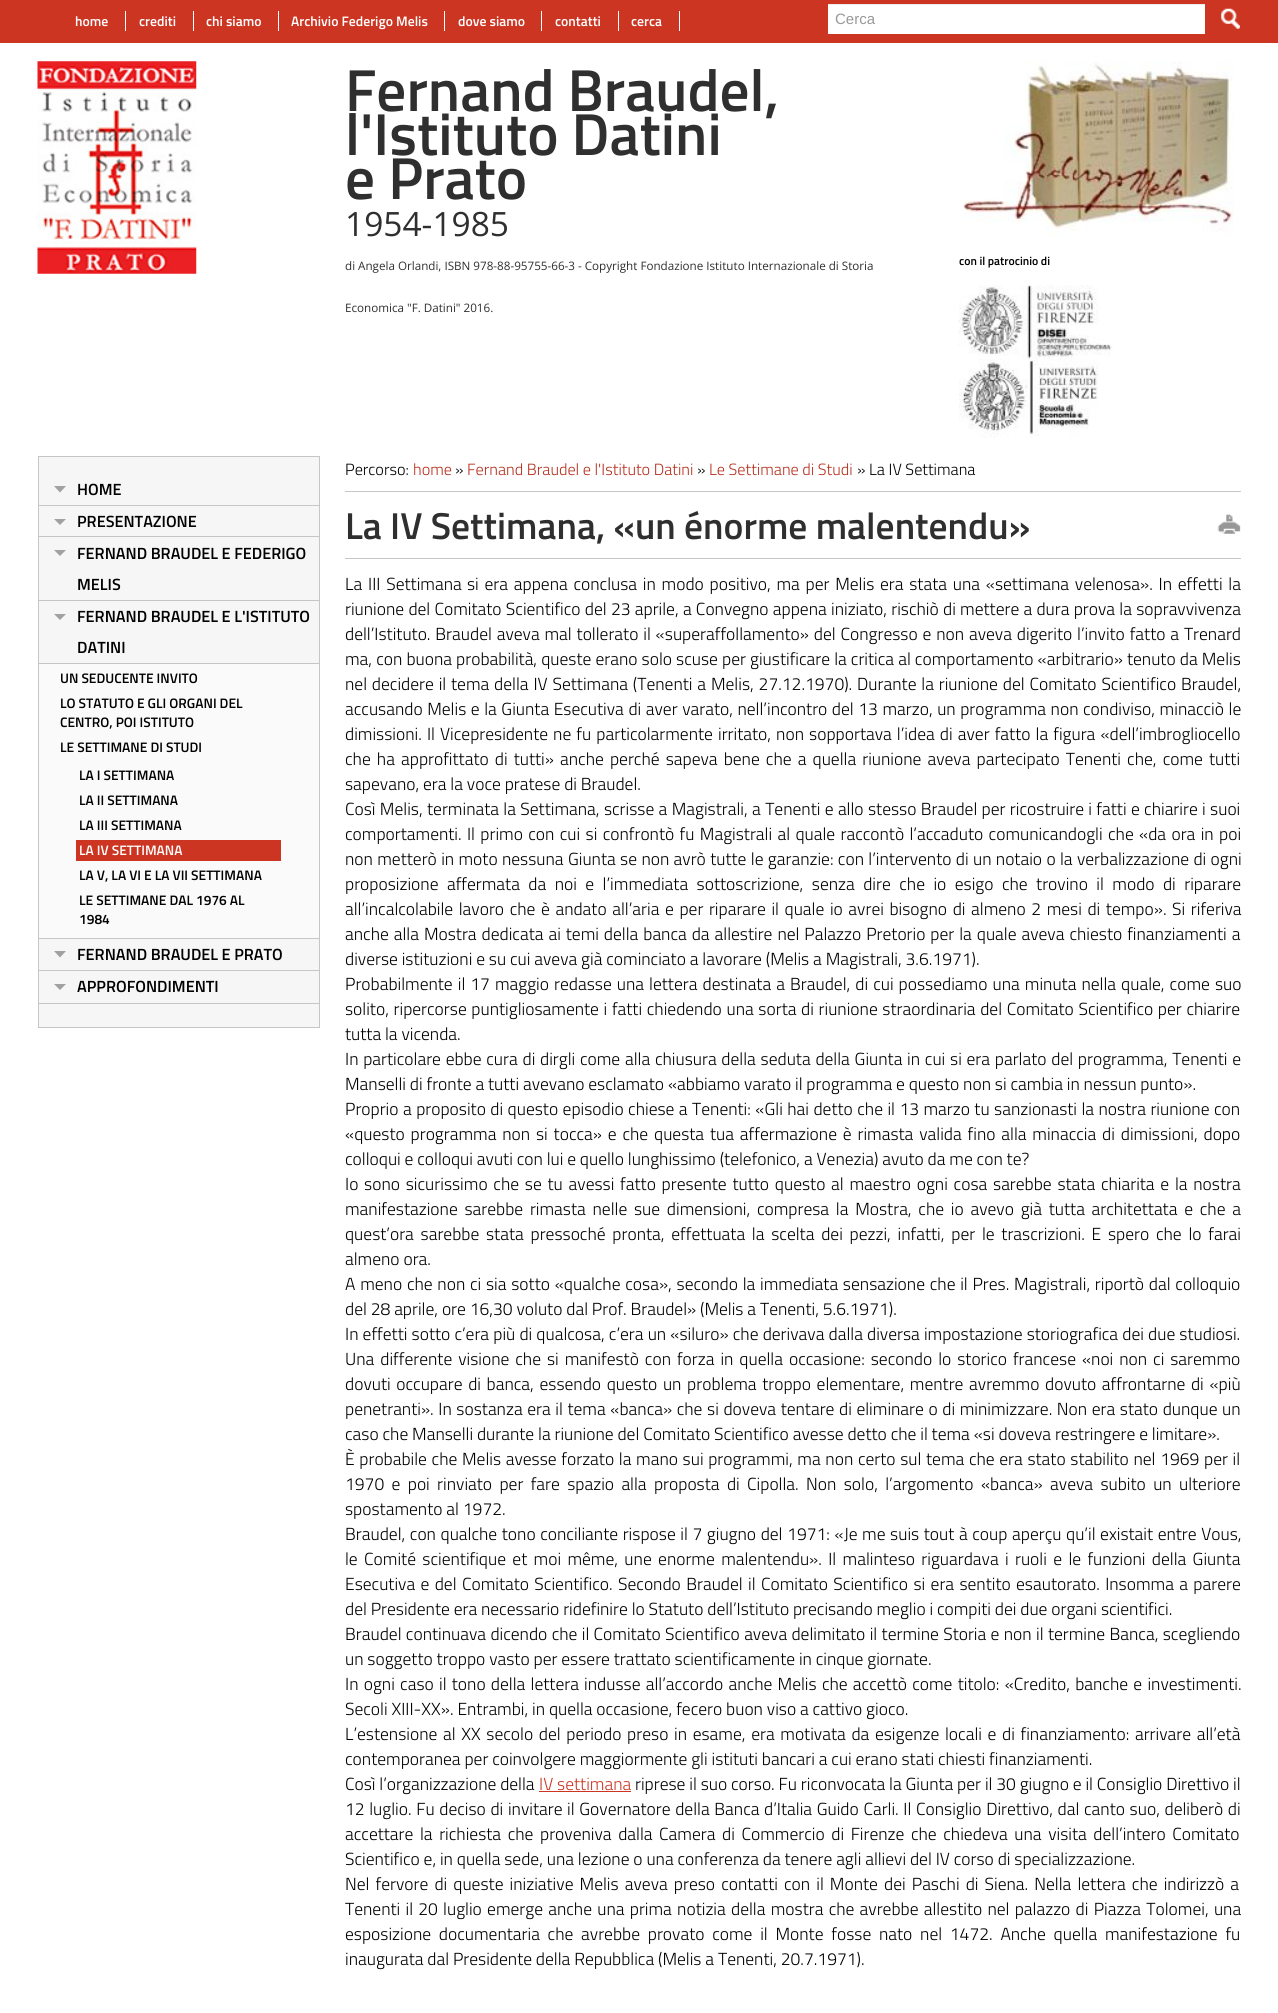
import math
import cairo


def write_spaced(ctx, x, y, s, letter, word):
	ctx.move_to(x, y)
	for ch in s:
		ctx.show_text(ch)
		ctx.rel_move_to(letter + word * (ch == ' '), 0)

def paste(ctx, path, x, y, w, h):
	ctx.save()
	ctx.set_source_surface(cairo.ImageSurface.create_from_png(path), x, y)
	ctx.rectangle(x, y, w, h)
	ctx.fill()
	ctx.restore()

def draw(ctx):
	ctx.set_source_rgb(1, 1, 1)
	ctx.paint()
	ctx.set_source_rgb(0.8, 0.208, 0.133)
	ctx.rectangle(0, 0, 1278, 43)
	ctx.fill()
	ctx.select_font_face('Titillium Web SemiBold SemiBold')
	ctx.set_font_size(13.75)
	ctx.set_source_rgb(1, 1, 1)
	ctx.move_to(75, 26)
	ctx.show_text('home')
	ctx.rectangle(125, 11, 1, 20)
	ctx.fill()
	ctx.move_to(139, 26)
	ctx.show_text('crediti')
	ctx.rectangle(193, 11, 1, 20)
	ctx.fill()
	ctx.move_to(206, 26)
	ctx.show_text('chi siamo')
	ctx.rectangle(278, 11, 1, 20)
	ctx.fill()
	ctx.move_to(291, 26)
	ctx.show_text('Archivio Federigo Melis')
	ctx.rectangle(444, 11, 1, 20)
	ctx.fill()
	ctx.move_to(458, 26)
	ctx.show_text('dove siamo')
	ctx.rectangle(541, 11, 1, 20)
	ctx.fill()
	ctx.move_to(555, 26)
	ctx.show_text('contatti')
	ctx.rectangle(618, 11, 1, 20)
	ctx.fill()
	ctx.move_to(631, 26)
	ctx.show_text('cerca')
	ctx.rectangle(679, 11, 1, 20)
	ctx.rectangle(828, 5, 377, 29)
	ctx.fill()
	ctx.set_source_rgb(0.925, 0.925, 0.925)
	ctx.rectangle(828, 4, 377, 1)
	ctx.fill()
	ctx.select_font_face('Liberation Sans')
	ctx.set_font_size(15)
	ctx.set_source_rgb(0.6, 0.6, 0.6)
	ctx.move_to(835, 24)
	ctx.show_text('Cerca')
	paste(ctx, 'media/1.png', 1221, 8, 19, 21)
	paste(ctx, 'media/2.png', 37, 61, 160, 213)
	ctx.select_font_face('Titillium Web SemiBold SemiBold')
	ctx.set_font_size(59.25)
	ctx.set_source_rgb(0.184, 0.184, 0.184)
	for x, y, s in [
		(345, 111, 'Fernand Braudel,'),
		(345, 155, 'l\'Istituto Datini'),
		(345, 199, 'e Prato'),
	]:
		ctx.move_to(x, y)
		ctx.show_text(s)
	ctx.select_font_face('Open Sans')
	ctx.set_font_size(33.5)
	ctx.move_to(345, 236)
	ctx.show_text('1954-1985')
	ctx.set_font_size(11.65)
	ctx.move_to(345, 270)
	ctx.show_text('di Angela Orlandi, ISBN 978-88-95755-66-3 - Copyright Fondazione Istituto Internazionale di Storia')
	ctx.move_to(345, 312)
	ctx.show_text('Economica "F. Datini" 2016.')
	paste(ctx, 'media/3.png', 963, 61, 271, 175)
	ctx.select_font_face('Titillium Web SemiBold SemiBold')
	ctx.set_font_size(11.75)
	ctx.set_source_rgb(0, 0, 0)
	ctx.move_to(959, 265)
	ctx.show_text('con il patrocinio di')
	paste(ctx, 'media/4.png', 958, 285, 155, 74)
	paste(ctx, 'media/5.png', 959, 359, 140, 79)
	ctx.set_source_rgb(0.961, 0.961, 0.961)
	ctx.rectangle(38.5, 456.5, 281, 571)
	ctx.fill_preserve()
	ctx.set_source_rgb(0.776, 0.776, 0.776)
	ctx.set_line_width(1)
	ctx.stroke()
	ctx.rectangle(39, 505, 280, 1)
	ctx.fill()
	ctx.set_source_rgb(0.631, 0.631, 0.631)
	ctx.new_path()
	ctx.move_to(54, 486)
	ctx.line_to(66, 486)
	ctx.line_to(60, 492.5)
	ctx.close_path()
	ctx.fill()
	ctx.set_font_size(16.25)
	ctx.set_source_rgb(0, 0, 0)
	ctx.move_to(77, 495)
	ctx.show_text('HOME')
	ctx.set_source_rgb(0.776, 0.776, 0.776)
	ctx.rectangle(39, 536, 280, 1)
	ctx.fill()
	ctx.set_source_rgb(0.631, 0.631, 0.631)
	ctx.new_path()
	ctx.move_to(54, 519)
	ctx.line_to(66, 519)
	ctx.line_to(60, 525)
	ctx.close_path()
	ctx.fill()
	ctx.set_source_rgb(0, 0, 0)
	ctx.move_to(77, 527)
	ctx.show_text('PRESENTAZIONE')
	ctx.set_source_rgb(0.776, 0.776, 0.776)
	ctx.rectangle(39, 600, 280, 1)
	ctx.fill()
	ctx.set_source_rgb(0.631, 0.631, 0.631)
	ctx.new_path()
	ctx.move_to(54, 550)
	ctx.line_to(66, 550)
	ctx.line_to(60, 556)
	ctx.close_path()
	ctx.fill()
	ctx.set_source_rgb(0, 0, 0)
	ctx.move_to(77, 559)
	ctx.show_text('FERNAND BRAUDEL E FEDERIGO')
	ctx.move_to(77, 590)
	ctx.show_text('MELIS')
	ctx.set_source_rgb(0.776, 0.776, 0.776)
	ctx.rectangle(39, 663, 280, 1)
	ctx.fill()
	ctx.set_source_rgb(0.631, 0.631, 0.631)
	ctx.new_path()
	ctx.move_to(54, 614)
	ctx.line_to(66, 614)
	ctx.line_to(60, 620)
	ctx.close_path()
	ctx.fill()
	ctx.set_source_rgb(0, 0, 0)
	ctx.move_to(77, 622)
	ctx.show_text('FERNAND BRAUDEL E L\'ISTITUTO')
	ctx.move_to(77, 653)
	ctx.show_text('DATINI')
	ctx.set_source_rgb(0.98, 0.98, 0.98)
	ctx.rectangle(39, 664, 280, 274)
	ctx.fill()
	ctx.set_source_rgb(0.776, 0.776, 0.776)
	ctx.rectangle(39, 938, 280, 1)
	ctx.fill()
	ctx.set_font_size(13.75)
	ctx.set_source_rgb(0, 0, 0)
	for x, y, s in [
		(60, 683, 'UN SEDUCENTE INVITO'),
		(60, 708, 'LO STATUTO E GLI ORGANI DEL'),
		(60, 727, 'CENTRO, POI ISTITUTO'),
		(60, 752, 'LE SETTIMANE DI STUDI'),
		(79, 780, 'LA I SETTIMANA'),
		(79, 805, 'LA II SETTIMANA'),
		(79, 830, 'LA III SETTIMANA'),
	]:
		ctx.move_to(x, y)
		ctx.show_text(s)
	ctx.set_source_rgb(0.8, 0.208, 0.133)
	ctx.rectangle(76, 840, 205, 21)
	ctx.fill()
	ctx.set_source_rgb(1, 1, 1)
	ctx.move_to(79, 855)
	ctx.show_text('LA IV SETTIMANA')
	ctx.set_source_rgb(0, 0, 0)
	for x, y, s in [
		(79, 880, 'LA V, LA VI E LA VII SETTIMANA'),
		(79, 905, 'LE SETTIMANE DAL 1976 AL'),
		(79, 924, '1984'),
	]:
		ctx.move_to(x, y)
		ctx.show_text(s)
	ctx.set_source_rgb(0.776, 0.776, 0.776)
	ctx.rectangle(39, 970, 280, 1)
	ctx.fill()
	ctx.set_source_rgb(0.631, 0.631, 0.631)
	ctx.new_path()
	ctx.move_to(54, 951)
	ctx.line_to(66, 951)
	ctx.line_to(60, 957.5)
	ctx.close_path()
	ctx.fill()
	ctx.set_font_size(16.25)
	ctx.set_source_rgb(0, 0, 0)
	ctx.move_to(77, 960)
	ctx.show_text('FERNAND BRAUDEL E PRATO')
	ctx.set_source_rgb(0.776, 0.776, 0.776)
	ctx.rectangle(39, 1003, 280, 1)
	ctx.fill()
	ctx.set_source_rgb(0.631, 0.631, 0.631)
	ctx.new_path()
	ctx.move_to(54, 984)
	ctx.line_to(66, 984)
	ctx.line_to(60, 990)
	ctx.close_path()
	ctx.fill()
	ctx.set_source_rgb(0, 0, 0)
	ctx.move_to(77, 992)
	ctx.show_text('APPROFONDIMENTI')
	ctx.select_font_face('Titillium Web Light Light')
	ctx.move_to(345, 475)
	ctx.show_text('Percorso:')
	ctx.set_source_rgb(0.714, 0.184, 0.118)
	ctx.move_to(413, 475)
	ctx.show_text('home')
	ctx.set_source_rgb(0, 0, 0)
	ctx.move_to(455, 475)
	ctx.show_text('»')
	ctx.set_source_rgb(0.714, 0.184, 0.118)
	ctx.move_to(467, 475)
	ctx.show_text('Fernand Braudel e l\'Istituto Datini')
	ctx.set_source_rgb(0, 0, 0)
	ctx.move_to(697, 475)
	ctx.show_text('»')
	ctx.set_source_rgb(0.714, 0.184, 0.118)
	ctx.move_to(709, 475)
	ctx.show_text('Le Settimane di Studi')
	ctx.set_source_rgb(0, 0, 0)
	ctx.move_to(857, 475)
	ctx.show_text('» La IV Settimana')
	ctx.set_source_rgb(0.776, 0.776, 0.776)
	ctx.rectangle(345, 491, 896, 1)
	ctx.fill()
	ctx.rectangle(345, 558, 896, 1)
	ctx.fill()
	ctx.select_font_face('Titillium Web SemiBold SemiBold')
	ctx.set_font_size(37.5)
	ctx.set_source_rgb(0.184, 0.184, 0.184)
	ctx.move_to(345, 539)
	ctx.show_text('La IV Settimana, «un énorme malentendu»')
	paste(ctx, 'media/6.png', 1217, 513, 24, 21)
	ctx.select_font_face('Titillium Web Light Light')
	ctx.set_font_size(17.5)
	ctx.set_source_rgb(0, 0, 0)
	ctx.move_to(345, 590)
	ctx.show_text('La')
	write_spaced(ctx, 368, 590, 'III Settimana', 0, 2)
	write_spaced(ctx, 467, 590, 'si era appena conclusa in modo positivo, ma per Melis era stata una «settimana velenosa». In effetti la', 0, 1.9)
	write_spaced(ctx, 345, 615, 'riunione del Comitato Scientifico del 23 aprile, a Convegno appena iniziato, rischiò di mettere a dura prova la sopravvivenza', 0, 0.4)
	write_spaced(ctx, 345, 640, 'dell’Istituto. Braudel aveva mal tollerato il «superaffollamento» del Congresso e non aveva digerito l’invito fatto a Trenard', 0, 1)
	write_spaced(ctx, 345, 665, 'ma, con buona probabilità, queste erano solo scuse per giustificare la critica al comportamento «arbitrario» tenuto da Melis', 0, 0.25)
	write_spaced(ctx, 345, 690, 'nel decidere il tema della IV Settimana (Tenenti a Melis, 27.12.1970). Durante la riunione del Comitato Scientifico Braudel,', 0, 1)
	write_spaced(ctx, 345, 715, 'accusando Melis e la Giunta Esecutiva di aver varato, nell’incontro del 13 marzo, un programma non condiviso, minacciò le', 0, 0.7)
	write_spaced(ctx, 345, 740, 'dimissioni. Il Vicepresidente ne fu particolarmente irritato, non sopportava l’idea di aver fatto la figura «dell’imbrogliocello', 0, 1.25)
	write_spaced(ctx, 345, 765, 'che ha approfittato di tutti» anche perché sapeva bene che a quella riunione aveva partecipato Tenenti che, come tutti', 0, 2.25)
	ctx.move_to(345, 790)
	ctx.show_text('sapevano, era la voce pratese di Braudel.')
	write_spaced(ctx, 345, 815, 'Così Melis, terminata la Settimana, scrisse a Magistrali, a Tenenti e allo stesso Braudel per ricostruire i fatti e chiarire i suoi', 0, 0.5)
	write_spaced(ctx, 345, 840, 'comportamenti. Il primo con cui si confrontò fu Magistrali al quale raccontò l’accaduto comunicandogli che «da ora in poi', 0, 1.5)
	write_spaced(ctx, 345, 865, 'non metterò in moto nessuna Giunta se non avrò tutte le garanzie: con l’intervento di un notaio o la verbalizzazione di ogni', 0, 0.5)
	write_spaced(ctx, 345, 890, 'proposizione affermata da noi e l’immediata sottoscrizione, senza dire che io esigo che trovino il modo di riparare', 0, 4.6)
	write_spaced(ctx, 345, 915, 'all’incalcolabile lavoro che è andato all’aria e per riparare il quale io avrei bisogno di almeno 2 mesi di tempo». Si riferiva', 0, 1.75)
	write_spaced(ctx, 345, 940, 'anche alla Mostra dedicata ai temi della banca da allestire nel Palazzo Pretorio per la quale aveva chiesto finanziamenti a', 0, 1.1)
	ctx.move_to(345, 965)
	ctx.show_text('diverse istituzioni e su cui aveva già cominciato a lavorare (Melis a Magistrali, 3.6.1971).')
	write_spaced(ctx, 345, 990, 'Probabilmente il 17 maggio redasse una lettera destinata a Braudel, di cui possediamo una minuta nella quale, come suo', 0, 1.2)
	write_spaced(ctx, 345, 1015, 'solito, ripercorse puntigliosamente i fatti chiedendo una sorta di riunione straordinaria del Comitato Scientifico per chiarire', 0, 0.8)
	ctx.move_to(345, 1040)
	ctx.show_text('tutta la vicenda.')
	write_spaced(ctx, 345, 1065, 'In particolare ebbe cura di dirgli come alla chiusura della seduta della Giunta in cui si era parlato del programma, Tenenti e', 0, 0.9)
	ctx.move_to(345, 1090)
	ctx.show_text('Manselli di fronte a tutti avevano esclamato «abbiamo varato il programma e questo non si cambia in nessun punto».')
	write_spaced(ctx, 345, 1115, 'Proprio a proposito di questo episodio chiese a Tenenti: «Gli hai detto che il 13 marzo tu sanzionasti la nostra riunione con', 0, 0.6)
	write_spaced(ctx, 345, 1140, '«questo programma non si tocca» e che questa tua affermazione è rimasta valida fino alla minaccia di dimissioni, dopo', 0, 2)
	ctx.move_to(345, 1165)
	ctx.show_text('colloqui e colloqui avuti con lui e quello lunghissimo (telefonico, a Venezia) avuto da me con te?')
	write_spaced(ctx, 345, 1190, 'Io sono sicurissimo che se tu avessi fatto presente tutto questo al maestro ogni cosa sarebbe stata chiarita e la nostra', 0, 1.9)
	write_spaced(ctx, 345, 1215, 'manifestazione sarebbe rimasta nelle sue dimensioni, compresa la Mostra, che io avevo già tutta architettata e che a', 0, 2.9)
	write_spaced(ctx, 345, 1240, 'quest’ora sarebbe stata pressoché pronta, effettuata la scelta dei pezzi, infatti, per le trascrizioni. E spero che lo farai', 0, 2.9)
	ctx.move_to(345, 1265)
	ctx.show_text('almeno ora.')
	write_spaced(ctx, 345, 1290, 'A meno che non ci sia sotto «qualche cosa», secondo la immediata sensazione che il Pres. Magistrali, riportò dal colloquio', 0, 0.9)
	ctx.move_to(345, 1315)
	ctx.show_text('del 28 aprile, ore 16,30 voluto dal Prof. Braudel» (Melis a Tenenti, 5.6.1971).')
	write_spaced(ctx, 345, 1340, 'In effetti sotto c’era più di qualcosa, c’era un «siluro» che derivava dalla diversa impostazione storiografica dei due studiosi.', 0, 0.3)
	write_spaced(ctx, 345, 1365, 'Una differente visione che si manifestò con forza in quella occasione: secondo lo storico francese «noi non ci saremmo', 0, 2.1)
	write_spaced(ctx, 345, 1390, 'dovuti occupare di banca, essendo questo un problema troppo elementare, mentre avremmo dovuto affrontarne di «più', 0, 1.8)
	write_spaced(ctx, 345, 1415, 'penetranti». In sostanza era il tema «banca» che si doveva tentare di eliminare o di minimizzare. Non era stato dunque un', 0, 0.75)
	ctx.move_to(345, 1440)
	ctx.show_text('caso che Manselli durante la riunione del Comitato Scientifico avesse detto che il tema «si doveva restringere e limitare».')
	write_spaced(ctx, 345, 1465, 'È probabile che Melis avesse forzato la mano sui programmi, ma non certo sul tema che era stato stabilito nel 1969 per il', 0, 0.8)
	write_spaced(ctx, 345, 1490, '1970 e poi rinviato per fare spazio alla proposta di Cipolla. Non solo, l’argomento «banca» aveva subito un ulteriore', 0, 3.5)
	ctx.move_to(345, 1515)
	ctx.show_text('spostamento al 1972.')
	write_spaced(ctx, 345, 1540, 'Braudel, con qualche tono conciliante rispose il 7 giugno del 1971: «Je me suis tout à coup aperçu qu’il existait entre Vous,', 0, 0.75)
	write_spaced(ctx, 345, 1565, 'le Comité scientifique et moi même, une enorme malentendu». Il malinteso riguardava i ruoli e le funzioni della Giunta', 0, 2.5)
	write_spaced(ctx, 345, 1590, 'Esecutiva e del Comitato Scientifico. Secondo Braudel il Comitato Scientifico si era sentito esautorato. Insomma a parere', 0, 1.5)
	ctx.move_to(345, 1615)
	ctx.show_text('del Presidente era necessario ridefinire lo Statuto dell’Istituto precisando meglio i compiti dei due organi scientifici.')
	write_spaced(ctx, 345, 1640, 'Braudel continuava dicendo che il Comitato Scientifico aveva delimitato il termine Storia e non il termine Banca, scegliendo', 0, 0.5)
	ctx.move_to(345, 1665)
	ctx.show_text('un soggetto troppo vasto per essere trattato scientificamente in cinque giornate.')
	write_spaced(ctx, 345, 1690, 'In ogni caso il tono della lettera indusse all’accordo anche Melis che accettò come titolo: «Credito, banche e investimenti.', 0, 1.4)
	ctx.move_to(345, 1715)
	ctx.show_text('Secoli XIII-XX». Entrambi, in quella occasione, fecero buon viso a cattivo gioco.')
	write_spaced(ctx, 345, 1740, 'L’estensione al XX secolo del periodo preso in esame, era motivata da esigenze locali e di finanziamento: arrivare all’età', 0, 1.8)
	ctx.move_to(345, 1765)
	ctx.show_text('contemporanea per coinvolgere maggiormente gli istituti bancari a cui erano stati chiesti finanziamenti.')
	ctx.move_to(345, 1790)
	ctx.show_text('Così l’organizzazione della')
	ctx.set_source_rgb(0.8, 0.208, 0.133)
	ctx.move_to(539, 1790)
	ctx.show_text('IV settimana')
	ctx.rectangle(539, 1791, 92, 1)
	ctx.fill()
	ctx.set_source_rgb(0, 0, 0)
	ctx.move_to(635, 1790)
	ctx.show_text('riprese il suo corso. Fu riconvocata la Giunta per il 30 giugno e il Consiglio Direttivo il')
	write_spaced(ctx, 345, 1815, '12 luglio. Fu deciso di invitare il Governatore della Banca d’Italia Guido Carli. Il Consiglio Direttivo, dal canto suo, deliberò di', 0, 0.8)
	write_spaced(ctx, 345, 1840, 'accettare la richiesta che proveniva dalla Camera di Commercio di Firenze che chiedeva una visita dell’intero Comitato', 0, 2.75)
	ctx.move_to(345, 1865)
	ctx.show_text('Scientifico e, in quella sede, una lezione o una conferenza da tenere agli allievi del IV corso di specializzazione.')
	write_spaced(ctx, 345, 1890, 'Nel fervore di queste iniziative Melis aveva preso contatti con il Monte dei Paschi di Siena. Nella lettera che indirizzò a', 0, 2.25)
	write_spaced(ctx, 345, 1915, 'Tenenti il 20 luglio emerge anche una prima notizia della mostra che avrebbe allestito nel palazzo di Piazza Tolomei, una', 0, 1.4)
	write_spaced(ctx, 345, 1940, 'esposizione documentaria che avrebbe provato come il Monte fosse nato nel 1472. Anche quella manifestazione fu', 0, 3.9)
	ctx.move_to(345, 1965)
	ctx.show_text('inaugurata dal Presidente della Repubblica (Melis a Tenenti, 20.7.1971).')


surface = cairo.ImageSurface(cairo.FORMAT_RGB24, 1278, 2013)
ctx = cairo.Context(surface)
options = cairo.FontOptions()
options.set_hint_metrics(cairo.HINT_METRICS_OFF)
options.set_hint_style(cairo.HINT_STYLE_NONE)
ctx.set_font_options(options)
ctx.set_miter_limit(4)
draw(ctx)
surface.write_to_png('image.png')
